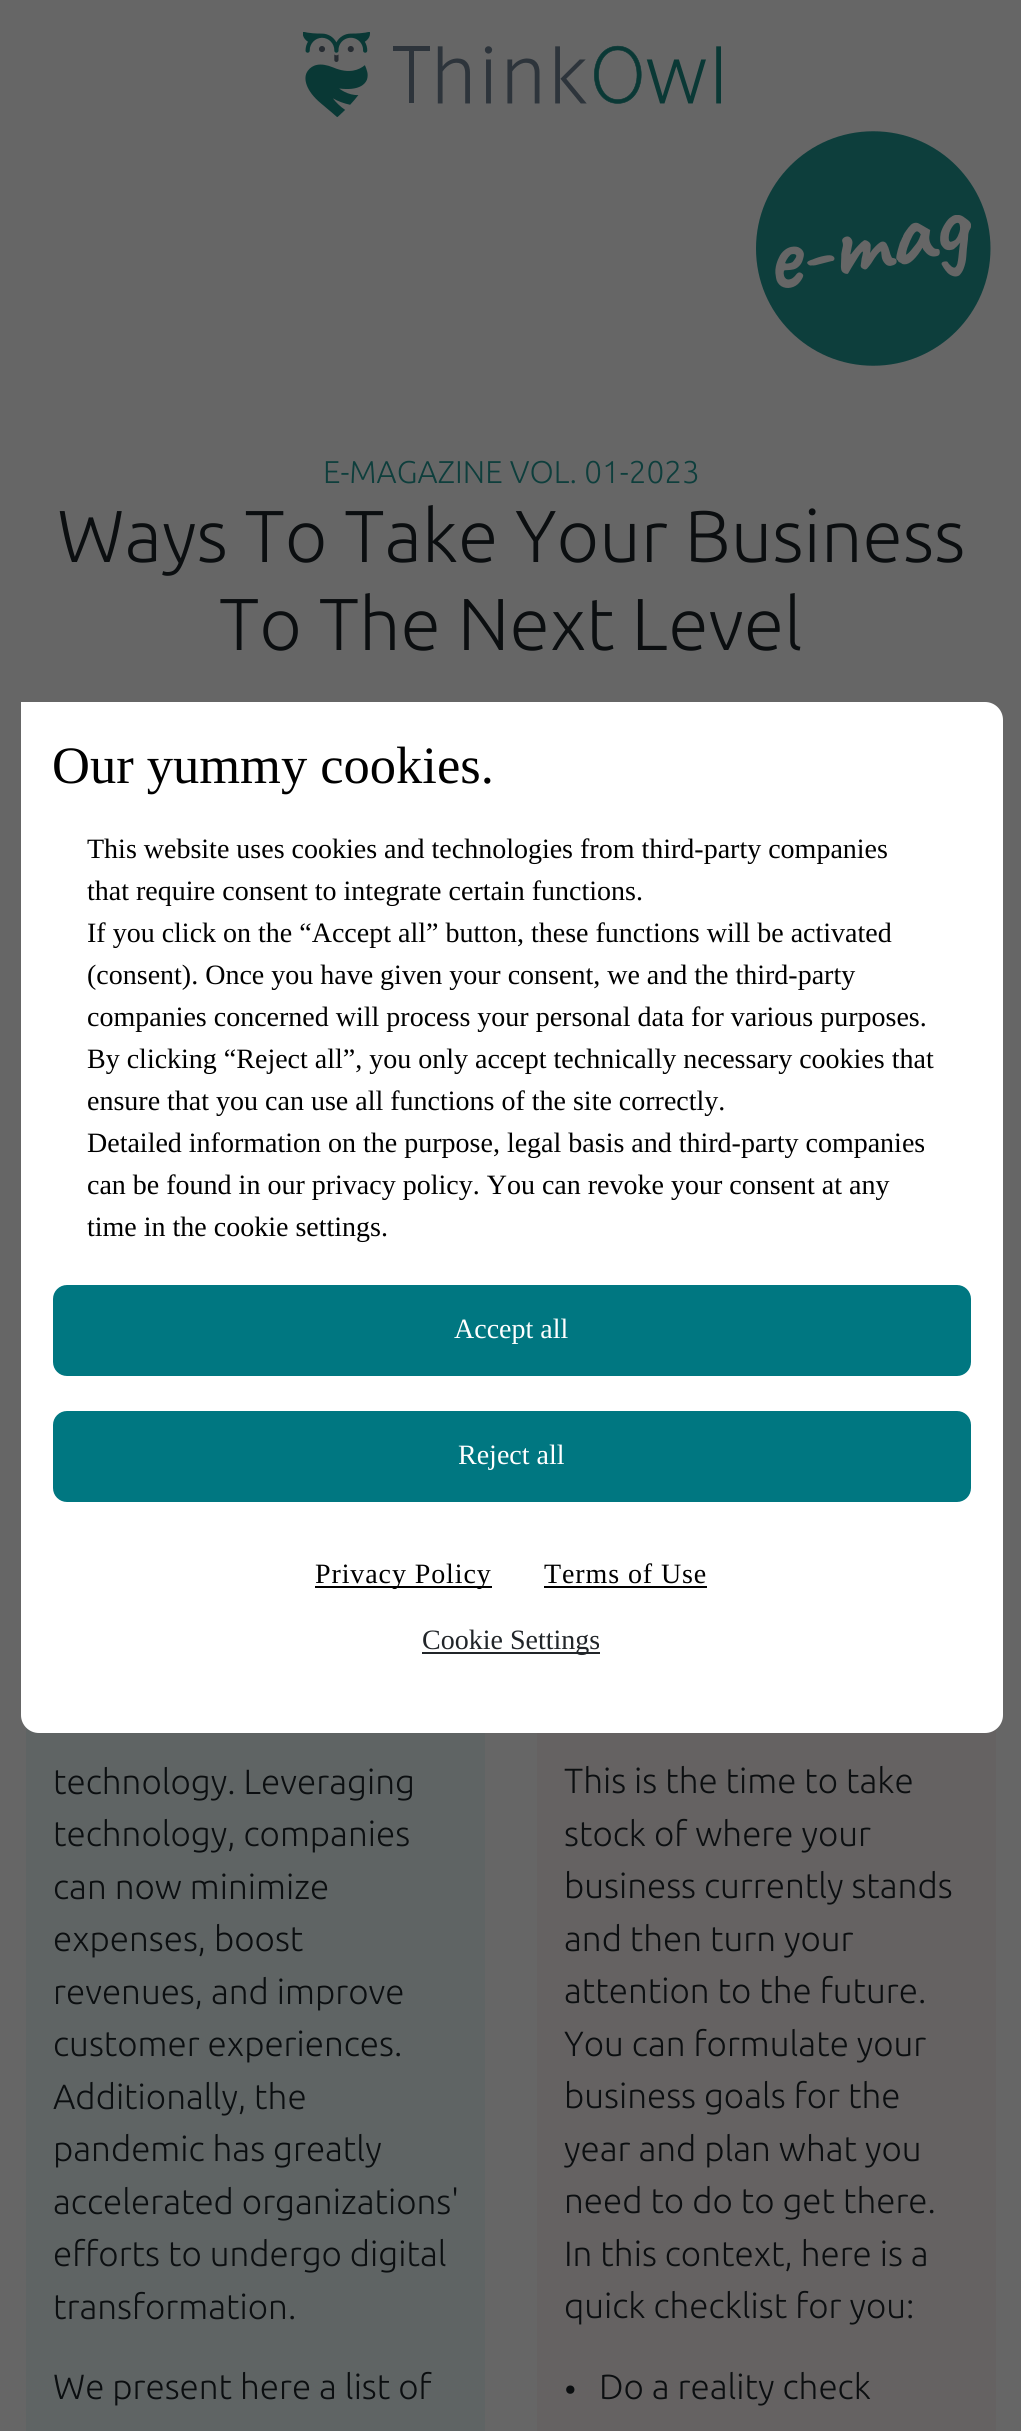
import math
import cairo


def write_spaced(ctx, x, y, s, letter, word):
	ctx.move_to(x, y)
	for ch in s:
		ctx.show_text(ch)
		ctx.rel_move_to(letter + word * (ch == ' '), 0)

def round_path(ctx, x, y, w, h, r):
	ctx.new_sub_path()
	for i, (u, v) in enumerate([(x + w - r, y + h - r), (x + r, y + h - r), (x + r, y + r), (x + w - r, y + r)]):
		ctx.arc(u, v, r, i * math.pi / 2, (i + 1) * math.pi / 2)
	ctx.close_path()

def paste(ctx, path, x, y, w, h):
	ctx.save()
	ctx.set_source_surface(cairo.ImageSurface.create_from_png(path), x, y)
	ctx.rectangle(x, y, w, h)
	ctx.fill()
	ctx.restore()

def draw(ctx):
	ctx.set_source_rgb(0.4, 0.4, 0.4)
	ctx.paint()
	paste(ctx, 'media/1.png', 303, 32, 418, 85)
	paste(ctx, 'media/2.png', 756, 131, 235, 235)
	ctx.select_font_face('Ubuntu Light')
	ctx.set_font_size(31.5)
	ctx.set_source_rgb(0.055, 0.243, 0.235)
	ctx.move_to(323, 483)
	ctx.show_text('E-MAGAZINE VOL. 01-2023')
	ctx.set_font_size(73.5)
	ctx.set_source_rgb(0.043, 0.055, 0.063)
	ctx.move_to(57, 562)
	ctx.show_text('Ways To Take Your Business')
	ctx.move_to(219, 650)
	ctx.show_text('To The Next Level')
	ctx.set_source_rgb(0.373, 0.392, 0.392)
	ctx.rectangle(26, 1727, 459, 704)
	ctx.fill()
	ctx.set_font_size(35)
	ctx.set_source_rgb(0.043, 0.055, 0.063)
	for x, y, s in [
		(53, 1794, 'technology. Leveraging'),
		(53, 1846, 'technology, companies'),
		(53, 1899, 'can now minimize'),
		(53, 1951, 'expenses, boost'),
		(53, 2004, 'revenues, and improve'),
		(53, 2056, 'customer experiences.'),
		(53, 2109, 'Additionally, the'),
		(53, 2161, 'pandemic has greatly'),
		(53, 2214, 'accelerated organizations\''),
		(53, 2266, 'efforts to undergo digital'),
		(53, 2319, 'transformation.'),
		(53, 2399, 'We present here a list of'),
	]:
		ctx.move_to(x, y)
		ctx.show_text(s)
	ctx.set_source_rgb(0.396, 0.384, 0.384)
	ctx.rectangle(537, 1729, 459, 702)
	ctx.fill()
	ctx.set_source_rgb(0.043, 0.055, 0.063)
	for x, y, s in [
		(564, 1793, 'This is the time to take'),
		(564, 1846, 'stock of where your'),
		(564, 1898, 'business currently stands'),
		(564, 1951, 'and then turn your'),
		(564, 2003, 'attention to the future.'),
		(564, 2056, 'You can formulate your'),
		(564, 2108, 'business goals for the'),
		(564, 2161, 'year and plan what you'),
		(564, 2213, 'need to do to get there.'),
		(564, 2266, 'In this context, here is a'),
		(564, 2318, 'quick checklist for you:'),
		(564, 2402, '•'),
		(599, 2399, 'Do a reality check'),
	]:
		ctx.move_to(x, y)
		ctx.show_text(s)
	ctx.set_source_rgb(1, 1, 1)
	ctx.new_path()
	ctx.move_to(21, 702)
	ctx.line_to(985, 702)
	ctx.curve_to(995, 702, 1003, 710, 1003, 720)
	ctx.line_to(1003, 1715)
	ctx.curve_to(1003, 1725, 995, 1733, 985, 1733)
	ctx.line_to(39, 1733)
	ctx.curve_to(29, 1733, 21, 1725, 21, 1715)
	ctx.close_path()
	ctx.fill()
	ctx.select_font_face('Liberation Serif')
	ctx.set_font_size(52.5)
	ctx.set_source_rgb(0, 0, 0)
	ctx.move_to(52, 783)
	ctx.show_text('Our yummy cookies.')
	ctx.set_font_size(28)
	for x, y, s in [
		(87, 858, 'This website uses cookies and technologies from third-party companies'),
		(87, 900, 'that require consent to integrate certain functions.'),
		(87, 942, 'If you click on the “Accept all” button, these functions will be activated'),
		(87, 984, '(consent). Once you have given your consent, we and the third-party'),
		(87, 1026, 'companies concerned will process your personal data for various purposes.'),
		(87, 1068, 'By clicking “Reject all”, you only accept technically necessary cookies that'),
		(87, 1110, 'ensure that you can use all functions of the site correctly.'),
		(87, 1152, 'Detailed information on the purpose, legal basis and third-party companies'),
		(87, 1194, 'can be found in our privacy policy. You can revoke your consent at any'),
		(87, 1236, 'time in the cookie settings.'),
	]:
		ctx.move_to(x, y)
		ctx.show_text(s)
	ctx.set_source_rgb(0, 0.467, 0.506)
	round_path(ctx, 53, 1285, 918, 91, 14)
	ctx.fill()
	ctx.set_source_rgb(1, 1, 1)
	ctx.move_to(454, 1338)
	ctx.show_text('Accept all')
	ctx.set_source_rgb(0, 0.467, 0.506)
	round_path(ctx, 53, 1411, 918, 91, 14)
	ctx.fill()
	ctx.set_source_rgb(1, 1, 1)
	ctx.move_to(458, 1464)
	ctx.show_text('Reject all')
	ctx.set_source_rgb(0, 0, 0)
	ctx.rectangle(315, 1586, 177, 2)
	ctx.fill()
	write_spaced(ctx, 315, 1583, 'Privacy Policy', 0.9, 0)
	write_spaced(ctx, 544, 1583, 'Terms of Use', 0.9, 0)
	ctx.rectangle(544, 1586, 163, 2)
	ctx.fill()
	ctx.set_source_rgb(0.129, 0.145, 0.161)
	ctx.rectangle(422, 1652, 178, 2)
	ctx.fill()
	ctx.move_to(422, 1649)
	ctx.show_text('Cookie Settings')


surface = cairo.ImageSurface(cairo.FORMAT_RGB24, 1021, 2431)
ctx = cairo.Context(surface)
options = cairo.FontOptions()
options.set_hint_metrics(cairo.HINT_METRICS_OFF)
options.set_hint_style(cairo.HINT_STYLE_NONE)
ctx.set_font_options(options)
ctx.set_miter_limit(4)
draw(ctx)
surface.write_to_png('image.png')
